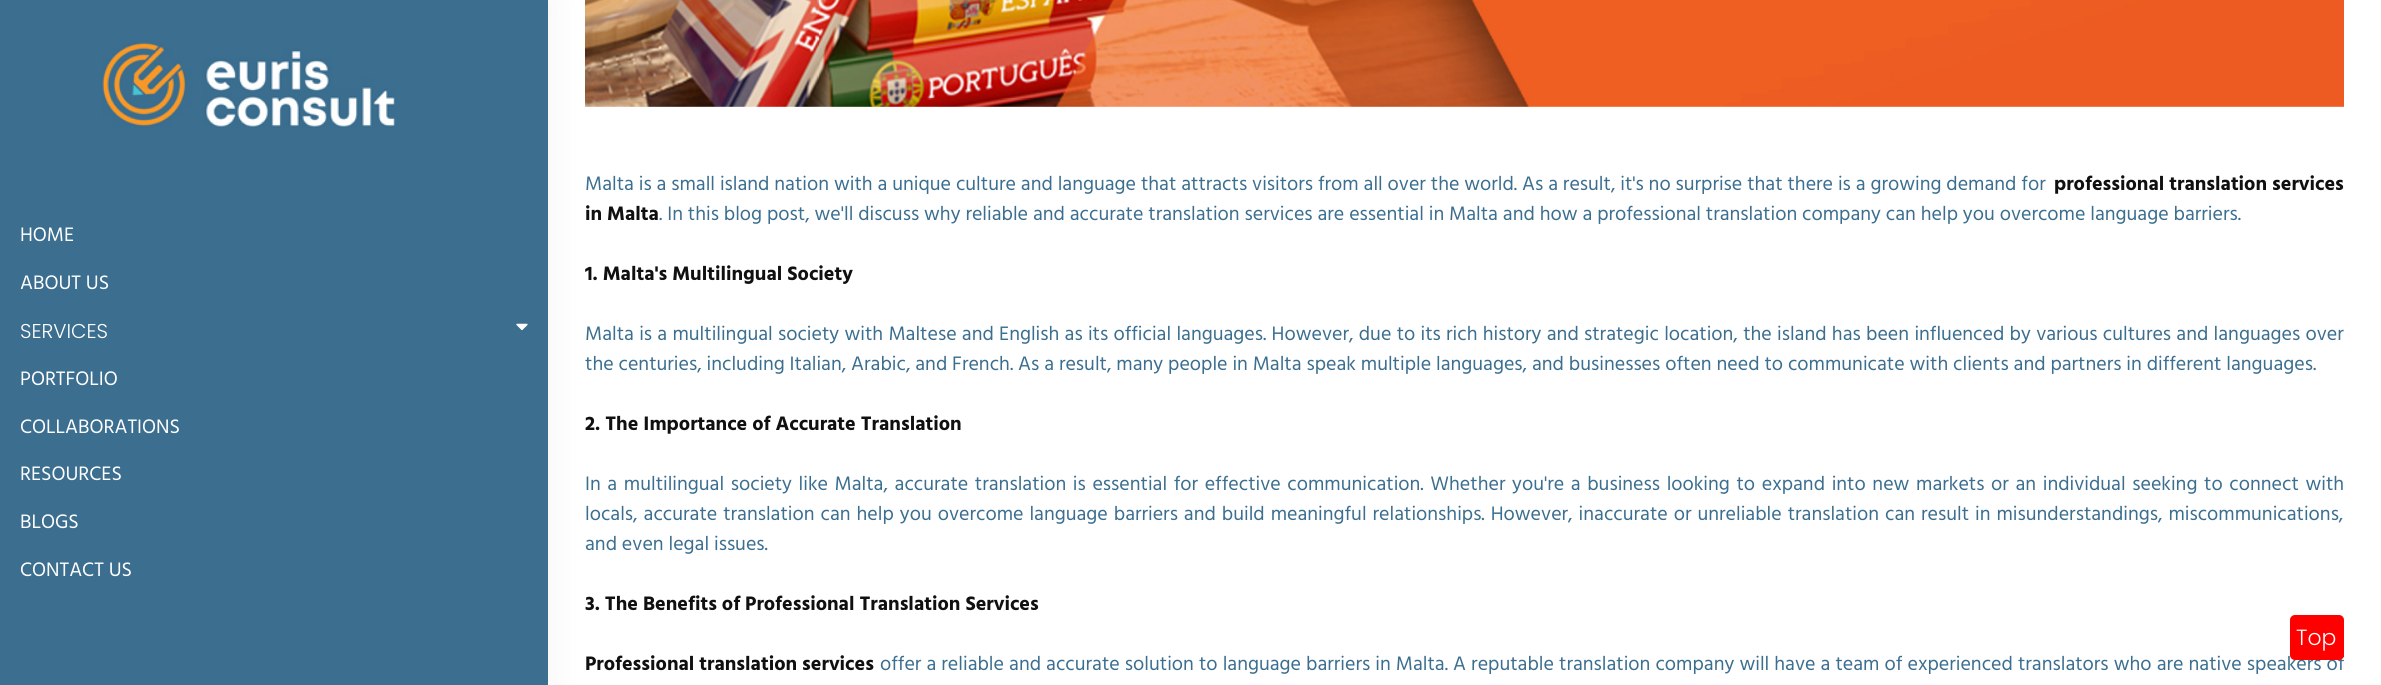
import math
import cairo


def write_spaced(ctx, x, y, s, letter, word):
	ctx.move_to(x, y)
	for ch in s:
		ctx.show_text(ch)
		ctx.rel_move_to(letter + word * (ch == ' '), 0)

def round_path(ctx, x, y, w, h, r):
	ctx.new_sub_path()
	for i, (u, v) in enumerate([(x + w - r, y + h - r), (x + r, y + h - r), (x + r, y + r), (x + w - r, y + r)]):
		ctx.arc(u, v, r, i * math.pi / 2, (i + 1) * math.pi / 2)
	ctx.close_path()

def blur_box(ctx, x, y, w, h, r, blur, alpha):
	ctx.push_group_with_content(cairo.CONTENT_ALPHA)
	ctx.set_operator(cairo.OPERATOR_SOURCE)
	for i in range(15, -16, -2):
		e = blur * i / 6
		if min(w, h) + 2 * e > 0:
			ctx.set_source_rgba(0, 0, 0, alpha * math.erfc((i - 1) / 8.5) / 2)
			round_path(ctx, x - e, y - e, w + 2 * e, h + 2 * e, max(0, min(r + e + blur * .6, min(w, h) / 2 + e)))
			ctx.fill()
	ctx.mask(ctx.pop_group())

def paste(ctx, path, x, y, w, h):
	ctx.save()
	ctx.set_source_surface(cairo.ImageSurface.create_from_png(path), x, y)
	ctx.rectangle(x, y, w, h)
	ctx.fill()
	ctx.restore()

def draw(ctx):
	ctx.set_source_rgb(1, 1, 1)
	ctx.paint()
	paste(ctx, 'media/3.png', 585, 0, 1759, 107)
	ctx.set_source_rgb(0, 0, 0)
	blur_box(ctx, 0, 0, 548, 685, 0, 19, 0.05)
	ctx.set_source_rgb(0.231, 0.431, 0.561)
	ctx.rectangle(0, 0, 548, 685)
	ctx.fill()
	paste(ctx, 'media/1.png', 101, 42, 294, 86)
	ctx.select_font_face('Hind')
	ctx.set_font_size(20)
	ctx.set_source_rgb(1, 1, 1)
	ctx.move_to(20, 241)
	ctx.show_text('HOME')
	ctx.move_to(20, 289)
	ctx.show_text('ABOUT US')
	ctx.select_font_face('Poppins Light')
	ctx.move_to(20, 338)
	ctx.show_text('SERVICES')
	paste(ctx, 'media/2.png', 516, 323, 12, 8)
	ctx.select_font_face('Hind')
	for x, y, s in [
		(20, 385, 'PORTFOLIO'),
		(20, 433, 'COLLABORATIONS'),
		(20, 480, 'RESOURCES'),
		(20, 528, 'BLOGS'),
		(20, 576, 'CONTACT US'),
	]:
		ctx.move_to(x, y)
		ctx.show_text(s)
	ctx.set_source_rgb(0.231, 0.431, 0.561)
	ctx.move_to(585, 190)
	ctx.show_text('Malta is a small island nation with a unique culture and language that attracts visitors from all over the world. As a result, it\'s no surprise that there is a growing demand for')
	ctx.select_font_face('Hind', cairo.FONT_SLANT_NORMAL, cairo.FONT_WEIGHT_BOLD)
	ctx.set_source_rgb(0.063, 0.063, 0.063)
	ctx.move_to(2054, 190)
	ctx.show_text('professional translation services')
	ctx.move_to(585, 220)
	ctx.show_text('in Malta')
	ctx.select_font_face('Hind')
	ctx.set_source_rgb(0.231, 0.431, 0.561)
	ctx.move_to(659, 220)
	ctx.show_text('. In this blog post, we\'ll discuss why reliable and accurate translation services are essential in Malta and how a professional translation company can help you overcome language barriers.')
	ctx.select_font_face('Hind', cairo.FONT_SLANT_NORMAL, cairo.FONT_WEIGHT_BOLD)
	ctx.set_source_rgb(0.063, 0.063, 0.063)
	ctx.move_to(585, 280)
	ctx.show_text('1. Malta\'s Multilingual Society')
	ctx.select_font_face('Hind')
	ctx.set_source_rgb(0.231, 0.431, 0.561)
	write_spaced(ctx, 585, 340, 'Malta is a multilingual society with Maltese and English as its official languages. However, due to its rich history and strategic location, the island has been influenced by various cultures and languages over', 0, 0.4)
	ctx.move_to(585, 370)
	ctx.show_text('the centuries, including Italian, Arabic, and French. As a result, many people in Malta speak multiple languages, and businesses often need to communicate with clients and partners in different languages.')
	ctx.select_font_face('Hind', cairo.FONT_SLANT_NORMAL, cairo.FONT_WEIGHT_BOLD)
	ctx.set_source_rgb(0.063, 0.063, 0.063)
	ctx.move_to(585, 430)
	ctx.show_text('2. The Importance of Accurate Translation')
	ctx.select_font_face('Hind')
	ctx.set_source_rgb(0.231, 0.431, 0.561)
	write_spaced(ctx, 585, 490, 'In a multilingual society like Malta, accurate translation is essential for effective communication. Whether you\'re a business looking to expand into new markets or an individual seeking to connect with', 0, 1.75)
	write_spaced(ctx, 585, 520, 'locals, accurate translation can help you overcome language barriers and build meaningful relationships. However, inaccurate or unreliable translation can result in misunderstandings, miscommunications,', 0, 1.1)
	ctx.move_to(585, 550)
	ctx.show_text('and even legal issues.')
	ctx.select_font_face('Hind', cairo.FONT_SLANT_NORMAL, cairo.FONT_WEIGHT_BOLD)
	ctx.set_source_rgb(0.063, 0.063, 0.063)
	ctx.move_to(585, 610)
	ctx.show_text('3. The Benefits of Professional Translation Services')
	ctx.move_to(585, 670)
	ctx.show_text('Professional translation services')
	ctx.select_font_face('Hind')
	ctx.set_source_rgb(0.231, 0.431, 0.561)
	write_spaced(ctx, 880, 670, 'offer a reliable and accurate solution to language barriers in Malta. A reputable translation company will have a team of experienced translators who are native speakers of', 0, 0.2)
	ctx.set_source_rgb(1, 0, 0)
	round_path(ctx, 2290, 615, 54, 45, 5)
	ctx.fill()
	ctx.select_font_face('Poppins Light')
	ctx.set_font_size(22)
	ctx.set_source_rgb(1, 1, 1)
	ctx.move_to(2296, 645)
	ctx.show_text('Top')


surface = cairo.ImageSurface(cairo.FORMAT_RGB24, 2381, 685)
ctx = cairo.Context(surface)
options = cairo.FontOptions()
options.set_hint_metrics(cairo.HINT_METRICS_OFF)
options.set_hint_style(cairo.HINT_STYLE_NONE)
ctx.set_font_options(options)
ctx.set_miter_limit(4)
draw(ctx)
surface.write_to_png('image.png')
